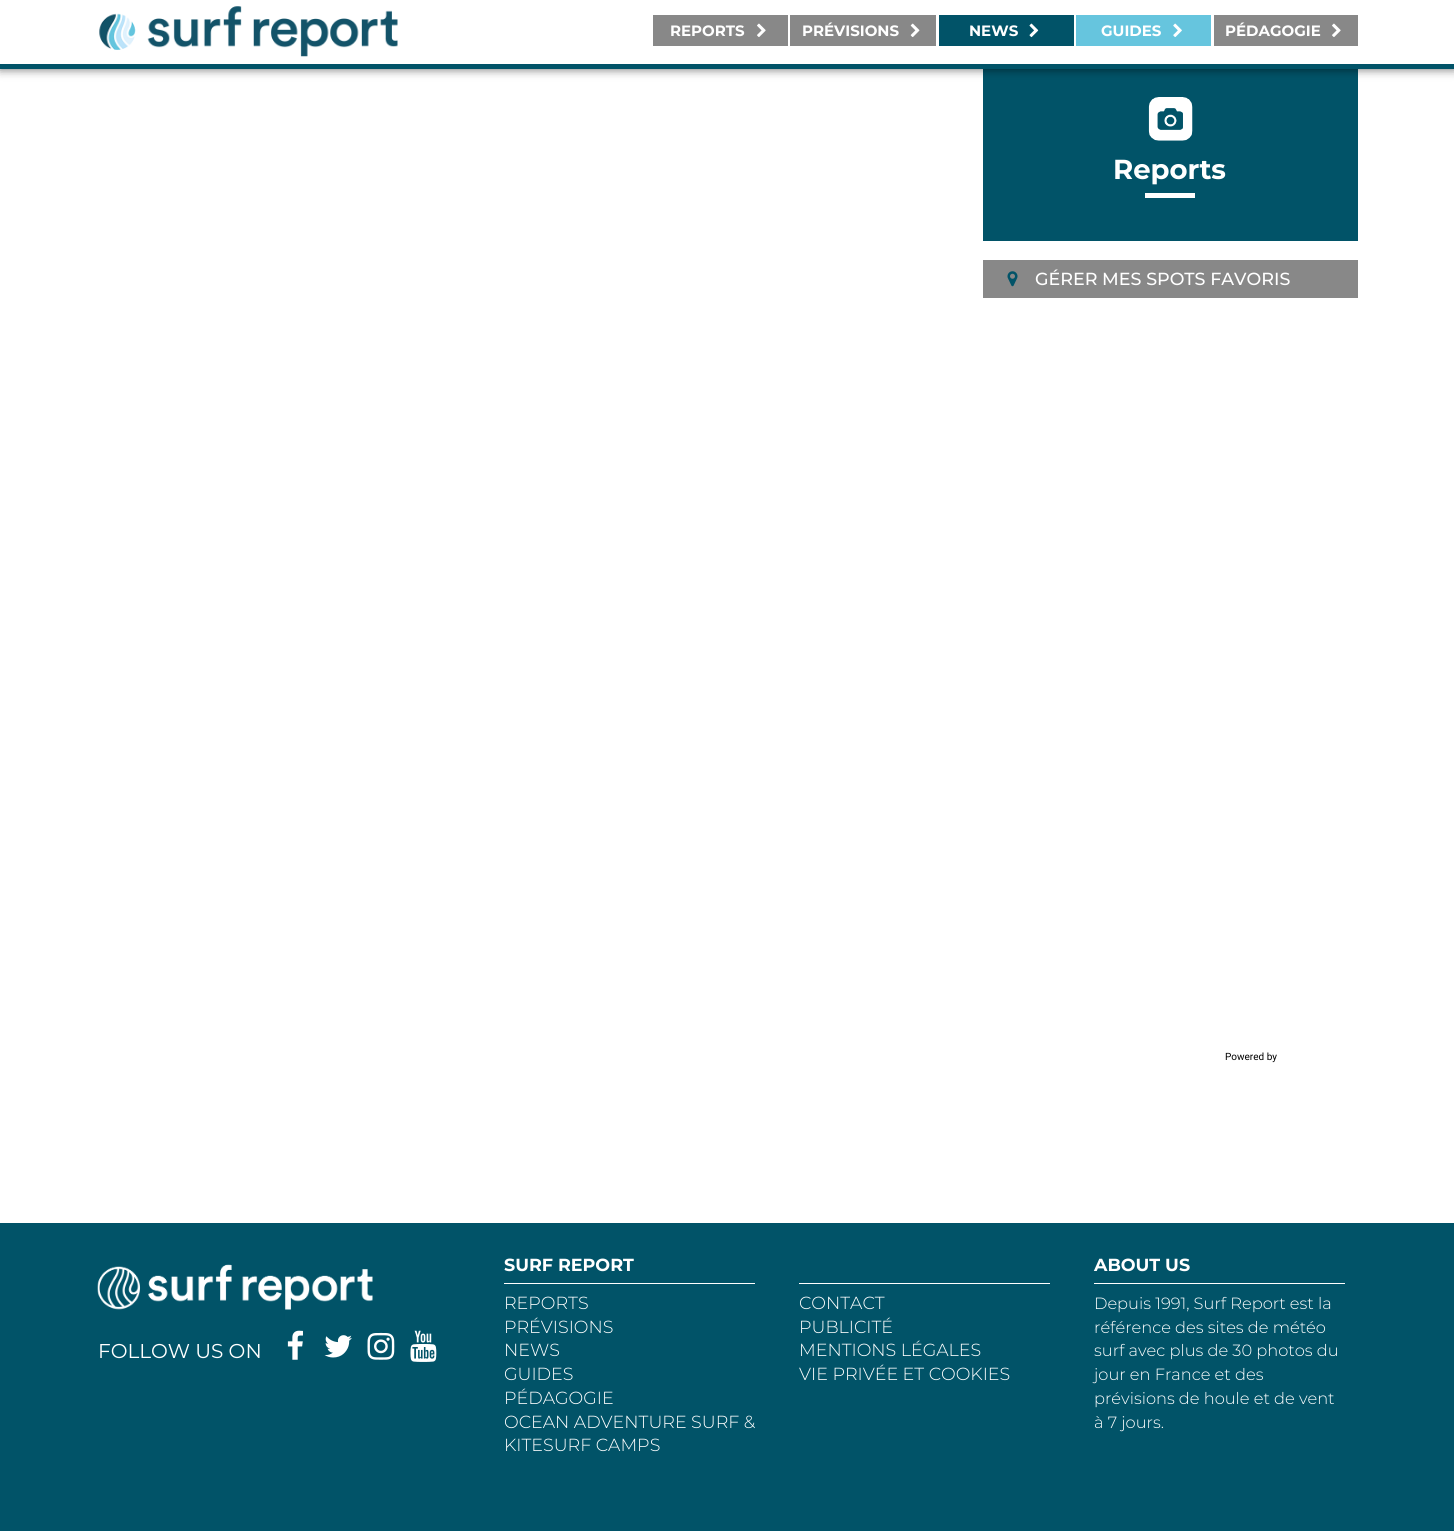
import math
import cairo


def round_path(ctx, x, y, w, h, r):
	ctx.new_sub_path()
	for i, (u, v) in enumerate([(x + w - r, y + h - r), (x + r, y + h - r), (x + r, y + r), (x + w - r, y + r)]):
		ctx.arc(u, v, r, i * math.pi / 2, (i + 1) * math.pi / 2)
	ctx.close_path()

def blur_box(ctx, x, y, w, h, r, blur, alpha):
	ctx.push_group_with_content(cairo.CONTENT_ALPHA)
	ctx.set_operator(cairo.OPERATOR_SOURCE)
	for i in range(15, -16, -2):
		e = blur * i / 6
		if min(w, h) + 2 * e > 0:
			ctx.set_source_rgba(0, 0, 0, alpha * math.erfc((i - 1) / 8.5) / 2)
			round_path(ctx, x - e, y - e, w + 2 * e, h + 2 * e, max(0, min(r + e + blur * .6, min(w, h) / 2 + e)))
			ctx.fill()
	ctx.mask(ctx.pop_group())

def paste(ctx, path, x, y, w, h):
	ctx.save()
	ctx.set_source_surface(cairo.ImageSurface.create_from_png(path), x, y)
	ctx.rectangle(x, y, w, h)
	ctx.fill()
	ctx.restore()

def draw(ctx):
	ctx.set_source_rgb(1, 1, 1)
	ctx.paint()
	ctx.set_source_rgb(0.004, 0.325, 0.408)
	ctx.rectangle(983, 69, 375, 172)
	ctx.fill()
	ctx.set_source_rgb(0, 0, 0)
	blur_box(ctx, 0, 0, 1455, 69, 0, 5, 0.6)
	ctx.set_source_rgb(1, 1, 1)
	ctx.rectangle(0, 0, 1454, 64)
	ctx.fill()
	ctx.set_source_rgb(0.004, 0.325, 0.408)
	ctx.rectangle(0, 64, 1454, 5)
	ctx.fill()
	paste(ctx, 'media/1.png', 99, 6, 299, 51)
	ctx.set_source_rgb(0.533, 0.533, 0.533)
	ctx.rectangle(653, 15, 135, 31)
	ctx.fill()
	ctx.select_font_face('Montserrat', cairo.FONT_SLANT_NORMAL, cairo.FONT_WEIGHT_BOLD)
	ctx.set_font_size(15)
	ctx.set_source_rgb(1, 1, 1)
	ctx.move_to(670, 36)
	ctx.show_text('REPORTS')
	paste(ctx, 'media/2.png', 757, 23, 9, 14)
	ctx.set_source_rgb(0.533, 0.533, 0.533)
	ctx.rectangle(790, 15, 146, 31)
	ctx.fill()
	ctx.set_source_rgb(1, 1, 1)
	ctx.move_to(802, 36)
	ctx.show_text('PRÉVISIONS')
	paste(ctx, 'media/3.png', 910, 23, 10, 14)
	ctx.set_source_rgb(0.004, 0.325, 0.408)
	ctx.rectangle(939, 15, 135, 31)
	ctx.fill()
	ctx.set_source_rgb(1, 1, 1)
	ctx.move_to(969, 36)
	ctx.show_text('NEWS')
	paste(ctx, 'media/4.png', 1029, 23, 10, 15)
	ctx.set_source_rgb(0.4, 0.773, 0.871)
	ctx.rectangle(1076, 15, 135, 31)
	ctx.fill()
	ctx.set_source_rgb(1, 1, 1)
	ctx.move_to(1101, 36)
	ctx.show_text('GUIDES')
	paste(ctx, 'media/5.png', 1173, 23, 9, 14)
	ctx.set_source_rgb(0.533, 0.533, 0.533)
	ctx.rectangle(1214, 15, 144, 31)
	ctx.fill()
	ctx.set_source_rgb(1, 1, 1)
	ctx.move_to(1225, 36)
	ctx.show_text('PÉDAGOGIE')
	paste(ctx, 'media/2.png', 1332, 23, 9, 14)
	paste(ctx, 'media/6.png', 1148, 97, 45, 44)
	ctx.set_font_size(27.5)
	ctx.move_to(1113, 179)
	ctx.show_text('Reports')
	ctx.rectangle(1145, 193, 50, 5)
	ctx.fill()
	ctx.set_source_rgb(0.533, 0.533, 0.533)
	ctx.rectangle(983, 260, 375, 38)
	ctx.fill()
	paste(ctx, 'media/7.png', 1007, 271, 11, 16)
	ctx.select_font_face('Montserrat Medium')
	ctx.set_font_size(17.5)
	ctx.set_source_rgb(1, 1, 1)
	ctx.move_to(1035, 285)
	ctx.show_text('GÉRER MES SPOTS FAVORIS')
	ctx.select_font_face('Roboto')
	ctx.set_font_size(10)
	ctx.set_source_rgb(0, 0, 0)
	ctx.move_to(1225, 1060)
	ctx.show_text('Powered by')
	ctx.set_source_rgb(0.004, 0.325, 0.408)
	ctx.rectangle(0, 1223, 1454, 308)
	ctx.fill()
	paste(ctx, 'media/8.png', 97, 1264, 276, 46)
	ctx.select_font_face('Montserrat')
	ctx.set_font_size(20)
	ctx.set_source_rgb(1, 1, 1)
	ctx.move_to(98, 1358)
	ctx.show_text('FOLLOW US ON')
	paste(ctx, 'media/9.png', 287, 1330, 16, 30)
	paste(ctx, 'media/10.png', 324, 1335, 28, 23)
	paste(ctx, 'media/11.png', 367, 1332, 28, 28)
	paste(ctx, 'media/12.png', 410, 1330, 27, 32)
	ctx.rectangle(504, 1283, 251, 1)
	ctx.fill()
	ctx.select_font_face('Montserrat', cairo.FONT_SLANT_NORMAL, cairo.FONT_WEIGHT_BOLD)
	ctx.set_font_size(17.5)
	ctx.move_to(504, 1271)
	ctx.show_text('SURF REPORT')
	ctx.select_font_face('Montserrat Light')
	for x, y, s in [
		(504, 1309, 'REPORTS'),
		(504, 1333, 'PRÉVISIONS'),
		(504, 1356, 'NEWS'),
		(504, 1380, 'GUIDES'),
		(504, 1404, 'PÉDAGOGIE'),
		(504, 1428, 'OCEAN ADVENTURE SURF &'),
		(504, 1451, 'KITESURF CAMPS'),
	]:
		ctx.move_to(x, y)
		ctx.show_text(s)
	ctx.rectangle(799, 1283, 251, 1)
	ctx.fill()
	for x, y, s in [
		(799, 1309, 'CONTACT'),
		(799, 1333, 'PUBLICITÉ'),
		(799, 1356, 'MENTIONS LÉGALES'),
		(799, 1380, 'VIE PRIVÉE ET COOKIES'),
	]:
		ctx.move_to(x, y)
		ctx.show_text(s)
	ctx.rectangle(1094, 1283, 251, 1)
	ctx.fill()
	ctx.select_font_face('Montserrat', cairo.FONT_SLANT_NORMAL, cairo.FONT_WEIGHT_BOLD)
	ctx.move_to(1094, 1271)
	ctx.show_text('ABOUT US')
	ctx.select_font_face('Montserrat Light')
	ctx.set_font_size(16.25)
	for x, y, s in [
		(1094, 1309, 'Depuis 1991, Surf Report est la'),
		(1094, 1333, 'référence des sites de météo'),
		(1094, 1356, 'surf avec plus de 30 photos du'),
		(1094, 1380, 'jour en France et des'),
		(1094, 1404, 'prévisions de houle et de vent'),
		(1094, 1428, 'à 7 jours.'),
	]:
		ctx.move_to(x, y)
		ctx.show_text(s)


surface = cairo.ImageSurface(cairo.FORMAT_RGB24, 1454, 1531)
ctx = cairo.Context(surface)
options = cairo.FontOptions()
options.set_hint_metrics(cairo.HINT_METRICS_OFF)
options.set_hint_style(cairo.HINT_STYLE_NONE)
ctx.set_font_options(options)
ctx.set_miter_limit(4)
draw(ctx)
surface.write_to_png('image.png')
